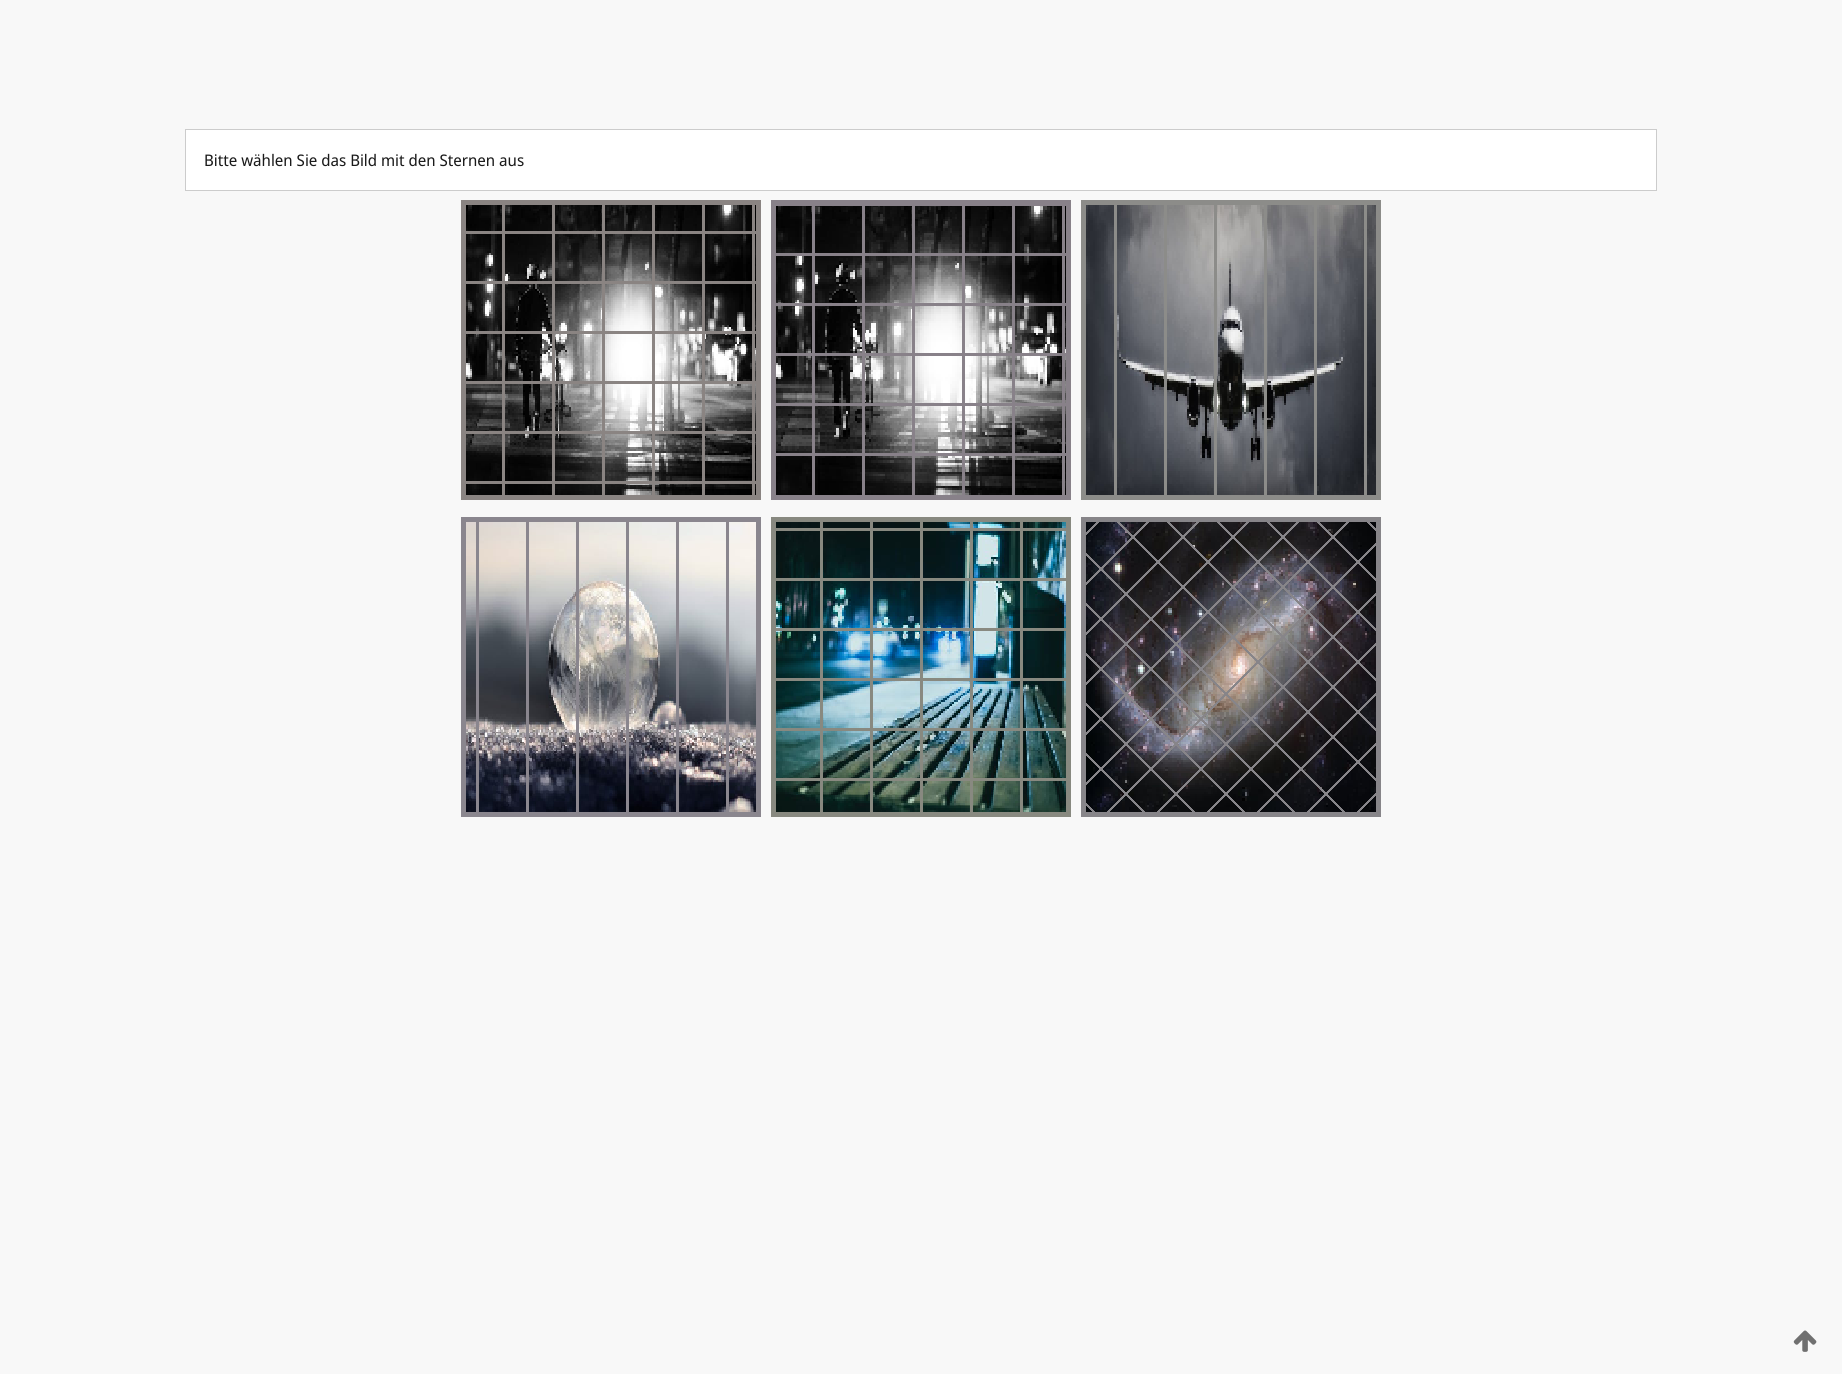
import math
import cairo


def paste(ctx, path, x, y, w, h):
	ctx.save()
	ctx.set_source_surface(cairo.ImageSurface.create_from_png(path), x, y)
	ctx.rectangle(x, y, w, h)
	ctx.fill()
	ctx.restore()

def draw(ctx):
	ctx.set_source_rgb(0.969, 0.969, 0.969)
	ctx.paint()
	ctx.set_source_rgb(1, 1, 1)
	ctx.rectangle(185.5, 129.5, 1471, 61)
	ctx.fill_preserve()
	ctx.set_source_rgb(0.8, 0.8, 0.8)
	ctx.set_line_width(1)
	ctx.stroke()
	ctx.select_font_face('Noto Sans Display')
	ctx.set_font_size(16)
	ctx.set_source_rgb(0.102, 0.102, 0.102)
	ctx.move_to(204, 166)
	ctx.show_text('Bitte wählen Sie das Bild mit den Sternen aus')
	paste(ctx, 'media/1.png', 461, 200, 300, 300)
	paste(ctx, 'media/2.png', 771, 200, 300, 300)
	paste(ctx, 'media/3.png', 1081, 200, 300, 300)
	paste(ctx, 'media/4.png', 461, 517, 300, 300)
	paste(ctx, 'media/5.png', 771, 517, 300, 300)
	paste(ctx, 'media/6.png', 1081, 517, 300, 300)
	paste(ctx, 'media/7.png', 1793, 1330, 24, 22)


surface = cairo.ImageSurface(cairo.FORMAT_RGB24, 1842, 1374)
ctx = cairo.Context(surface)
options = cairo.FontOptions()
options.set_hint_metrics(cairo.HINT_METRICS_OFF)
options.set_hint_style(cairo.HINT_STYLE_NONE)
ctx.set_font_options(options)
ctx.set_miter_limit(4)
draw(ctx)
surface.write_to_png('image.png')
